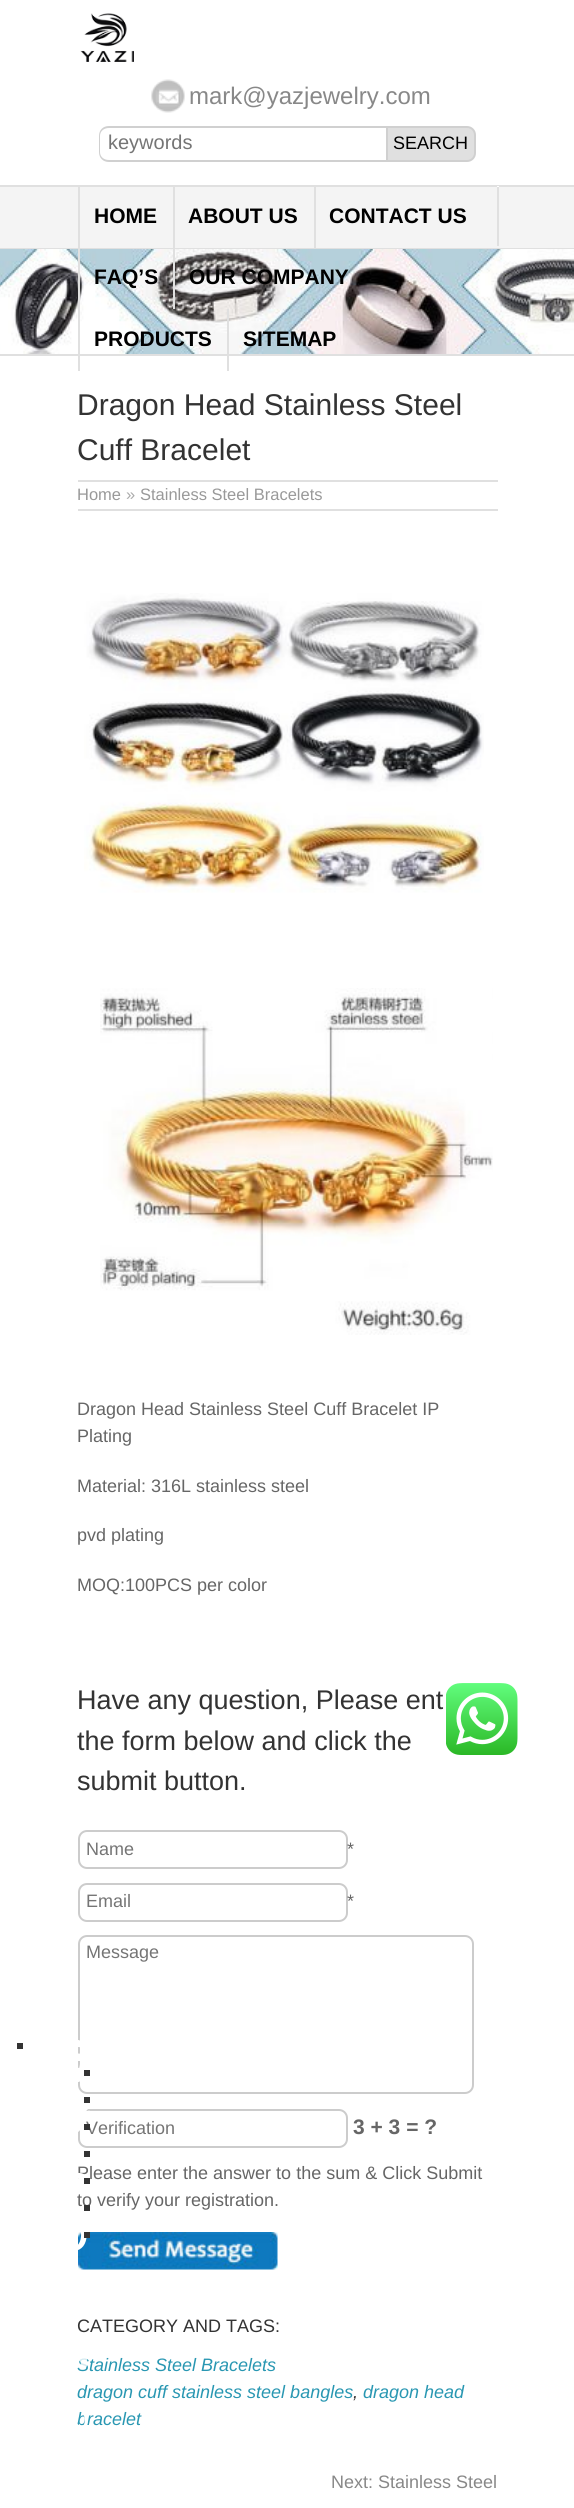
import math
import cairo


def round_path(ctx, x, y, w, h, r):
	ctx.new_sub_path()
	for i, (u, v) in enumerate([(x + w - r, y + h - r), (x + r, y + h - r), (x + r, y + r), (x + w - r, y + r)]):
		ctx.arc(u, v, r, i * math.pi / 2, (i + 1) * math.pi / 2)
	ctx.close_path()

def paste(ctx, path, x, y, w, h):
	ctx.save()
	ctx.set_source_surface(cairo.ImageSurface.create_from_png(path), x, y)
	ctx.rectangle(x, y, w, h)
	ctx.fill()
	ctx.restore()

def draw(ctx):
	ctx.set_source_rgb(1, 1, 1)
	ctx.paint()
	paste(ctx, 'media/1.png', 80, 13, 54, 49)
	paste(ctx, 'media/2.png', 151, 79, 34, 34)
	ctx.select_font_face('Liberation Sans')
	ctx.set_font_size(24)
	ctx.set_source_rgb(0.533, 0.533, 0.533)
	ctx.move_to(189, 104)
	ctx.show_text('mark@yazjewelry.com')
	ctx.set_source_rgb(0.816, 0.816, 0.816)
	ctx.set_fill_rule(cairo.FILL_RULE_EVEN_ODD)
	ctx.new_path()
	ctx.move_to(109, 126)
	ctx.line_to(386, 126)
	ctx.line_to(386, 162)
	ctx.line_to(109, 162)
	ctx.curve_to(103, 162, 99, 158, 99, 152)
	ctx.line_to(99, 136)
	ctx.curve_to(99, 130, 103, 126, 109, 126)
	ctx.close_path()
	ctx.move_to(109, 128)
	ctx.line_to(386, 128)
	ctx.line_to(386, 160)
	ctx.line_to(109, 160)
	ctx.curve_to(104, 160, 100, 157, 100, 152)
	ctx.line_to(100, 136)
	ctx.curve_to(100, 131, 104, 128, 109, 128)
	ctx.close_path()
	ctx.fill()
	ctx.set_font_size(20)
	ctx.set_source_rgb(0.459, 0.459, 0.459)
	ctx.move_to(108, 149)
	ctx.show_text('keywords')
	ctx.set_source_rgb(0.878, 0.878, 0.878)
	ctx.new_path()
	ctx.move_to(387, 127)
	ctx.line_to(467, 127)
	ctx.curve_to(471.5, 127, 475, 130.5, 475, 135)
	ctx.line_to(475, 153)
	ctx.curve_to(475, 157.5, 471.5, 161, 467, 161)
	ctx.line_to(387, 161)
	ctx.close_path()
	ctx.fill_preserve()
	ctx.set_source_rgb(0.816, 0.816, 0.816)
	ctx.stroke()
	ctx.set_font_size(18)
	ctx.set_source_rgb(0, 0, 0)
	ctx.move_to(393, 149)
	ctx.show_text('SEARCH')
	ctx.set_source_rgb(0.957, 0.957, 0.957)
	ctx.rectangle(0, 187, 574, 61)
	ctx.fill()
	ctx.set_source_rgb(0.878, 0.878, 0.878)
	ctx.rectangle(0, 185, 574, 2)
	ctx.rectangle(0, 248, 574, 1)
	ctx.rectangle(497, 186, 2, 60)
	ctx.fill()
	paste(ctx, 'media/3.png', 0, 249, 574, 105)
	ctx.rectangle(0, 354, 574, 2)
	ctx.fill()
	ctx.rectangle(78, 186, 2, 185)
	ctx.fill()
	ctx.select_font_face('Liberation Sans', cairo.FONT_SLANT_NORMAL, cairo.FONT_WEIGHT_BOLD)
	ctx.set_font_size(21)
	ctx.set_source_rgb(0, 0, 0)
	ctx.move_to(94, 223)
	ctx.show_text('HOME')
	ctx.set_source_rgb(0.878, 0.878, 0.878)
	ctx.rectangle(173, 186, 2, 123)
	ctx.fill()
	ctx.set_source_rgb(0, 0, 0)
	ctx.move_to(188, 223)
	ctx.show_text('ABOUT US')
	ctx.set_source_rgb(0.878, 0.878, 0.878)
	ctx.rectangle(314, 186, 2, 62)
	ctx.fill()
	ctx.set_source_rgb(0, 0, 0)
	for x, y, s in [
		(329, 223, 'CONTACT US'),
		(94, 284, 'FAQ’S'),
		(189, 284, 'OUR COMPANY'),
		(94, 346, 'PRODUCTS'),
	]:
		ctx.move_to(x, y)
		ctx.show_text(s)
	ctx.set_source_rgb(0.878, 0.878, 0.878)
	ctx.rectangle(227, 309, 2, 62)
	ctx.fill()
	ctx.set_source_rgb(0, 0, 0)
	ctx.move_to(243, 346)
	ctx.show_text('SITEMAP')
	ctx.set_source_rgb(0.878, 0.878, 0.878)
	ctx.rectangle(78, 480, 420, 2)
	ctx.fill()
	ctx.select_font_face('Liberation Sans')
	ctx.set_font_size(30)
	ctx.set_source_rgb(0.2, 0.2, 0.2)
	ctx.move_to(77, 415)
	ctx.show_text('Dragon Head Stainless Steel')
	ctx.move_to(77, 460)
	ctx.show_text('Cuff Bracelet')
	ctx.set_source_rgb(0.878, 0.878, 0.878)
	ctx.rectangle(78, 509, 420, 2)
	ctx.fill()
	ctx.set_font_size(16.5)
	ctx.set_source_rgb(0.6, 0.6, 0.6)
	ctx.move_to(77, 500)
	ctx.show_text('Home')
	ctx.set_source_rgb(0.667, 0.667, 0.667)
	ctx.move_to(126, 500)
	ctx.show_text('»')
	ctx.set_source_rgb(0.6, 0.6, 0.6)
	ctx.move_to(140, 500)
	ctx.show_text('Stainless Steel Bracelets')
	paste(ctx, 'media/4.png', 84, 593, 400, 300)
	paste(ctx, 'media/5.png', 100, 988, 393, 347)
	ctx.set_font_size(18)
	ctx.set_source_rgb(0.4, 0.4, 0.4)
	for x, y, s in [
		(77, 1415, 'Dragon Head Stainless Steel Cuff Bracelet IP'),
		(77, 1442, 'Plating'),
		(77, 1492, 'Material: 316L stainless steel'),
		(77, 1541, 'pvd plating'),
		(77, 1591, 'MOQ:100PCS per color'),
	]:
		ctx.move_to(x, y)
		ctx.show_text(s)
	ctx.set_source_rgb(0.2, 0.2, 0.2)
	ctx.rectangle(17, 2043, 6, 6)
	ctx.fill()
	round_path(ctx, 79, 1936, 394, 157, 8)
	ctx.set_source_rgb(0.8, 0.8, 0.8)
	ctx.stroke()
	paste(ctx, 'media/6.png', 78, 2040, 2, 42)
	ctx.set_source_rgb(0.2, 0.2, 0.2)
	ctx.rectangle(84, 2070, 6, 6)
	ctx.fill()
	round_path(ctx, 79, 2110, 268, 37, 8)
	ctx.set_source_rgb(0.8, 0.8, 0.8)
	ctx.stroke()
	ctx.set_source_rgb(0.459, 0.459, 0.459)
	ctx.move_to(86, 2134)
	ctx.show_text('Verification')
	paste(ctx, 'media/7.png', 78, 2109, 12, 23)
	ctx.set_source_rgb(0.2, 0.2, 0.2)
	ctx.rectangle(84, 2097, 6, 6)
	ctx.fill()
	ctx.set_source_rgb(0.4, 0.4, 0.4)
	ctx.move_to(77, 2179)
	ctx.show_text('Please enter the answer to the sum & Click Submit')
	paste(ctx, 'media/8.png', 78, 2173, 7, 6)
	ctx.set_source_rgb(0.2, 0.2, 0.2)
	ctx.rectangle(84, 2124, 6, 6)
	ctx.fill()
	paste(ctx, 'media/12.png', 78, 2232, 200, 38)
	paste(ctx, 'media/9.png', 78, 2232, 9, 18)
	ctx.rectangle(84, 2151, 6, 6)
	ctx.fill()
	ctx.rectangle(84, 2178, 6, 6)
	ctx.fill()
	ctx.select_font_face('Liberation Sans', cairo.FONT_SLANT_ITALIC)
	ctx.set_source_rgb(0.161, 0.592, 0.698)
	ctx.move_to(77, 2371)
	ctx.show_text('Stainless Steel Bracelets')
	paste(ctx, 'media/10.png', 79, 2358, 9, 10)
	ctx.select_font_face('Liberation Sans')
	ctx.set_source_rgb(0.4, 0.4, 0.4)
	ctx.move_to(77, 2206)
	ctx.show_text('to verify your registration.')
	ctx.set_source_rgb(0.2, 0.2, 0.2)
	ctx.rectangle(84, 2205, 6, 6)
	ctx.fill()
	ctx.select_font_face('Liberation Sans', cairo.FONT_SLANT_ITALIC)
	ctx.set_source_rgb(0.161, 0.592, 0.698)
	ctx.move_to(77, 2425)
	ctx.show_text('bracelet')
	paste(ctx, 'media/11.png', 77, 2411, 11, 14)
	ctx.set_source_rgb(0.2, 0.2, 0.2)
	ctx.rectangle(84, 2232, 6, 6)
	ctx.fill()
	ctx.select_font_face('Liberation Sans')
	ctx.set_font_size(27)
	for x, y, s in [
		(77, 1709, 'Have any question, Please ent'),
		(77, 1750, 'the form below and click the'),
		(77, 1790, 'submit button.'),
	]:
		ctx.move_to(x, y)
		ctx.show_text(s)
	round_path(ctx, 79, 1831, 268, 37, 8)
	ctx.set_source_rgb(0.8, 0.8, 0.8)
	ctx.stroke()
	ctx.set_font_size(18)
	ctx.set_source_rgb(0.459, 0.459, 0.459)
	ctx.move_to(86, 1855)
	ctx.show_text('Name')
	ctx.set_source_rgb(0.4, 0.4, 0.4)
	ctx.move_to(347, 1855)
	ctx.show_text('*')
	round_path(ctx, 79, 1884, 268, 37, 8)
	ctx.set_source_rgb(0.8, 0.8, 0.8)
	ctx.stroke()
	ctx.set_source_rgb(0.459, 0.459, 0.459)
	ctx.move_to(86, 1907)
	ctx.show_text('Email')
	ctx.set_source_rgb(0.4, 0.4, 0.4)
	ctx.move_to(347, 1907)
	ctx.show_text('*')
	ctx.set_source_rgb(0.459, 0.459, 0.459)
	ctx.move_to(86, 1958)
	ctx.show_text('Message')
	ctx.select_font_face('Liberation Sans', cairo.FONT_SLANT_NORMAL, cairo.FONT_WEIGHT_BOLD)
	ctx.set_font_size(21)
	ctx.set_source_rgb(0.4, 0.4, 0.4)
	ctx.move_to(353, 2134)
	ctx.show_text('3 + 3 = ?')
	ctx.select_font_face('Liberation Sans')
	ctx.set_font_size(18)
	ctx.set_source_rgb(0.2, 0.2, 0.2)
	ctx.move_to(77, 2332)
	ctx.show_text('CATEGORY AND TAGS:')
	ctx.select_font_face('Liberation Sans', cairo.FONT_SLANT_ITALIC)
	ctx.set_source_rgb(0.161, 0.592, 0.698)
	ctx.move_to(77, 2398)
	ctx.show_text('dragon cuff stainless steel bangles')
	ctx.set_source_rgb(0.2, 0.2, 0.2)
	ctx.move_to(353, 2398)
	ctx.show_text(',')
	ctx.set_source_rgb(0.161, 0.592, 0.698)
	ctx.move_to(363, 2398)
	ctx.show_text('dragon head')
	ctx.select_font_face('Liberation Sans')
	ctx.set_source_rgb(0.533, 0.533, 0.533)
	ctx.move_to(331, 2488)
	ctx.show_text('Next: Stainless Steel')
	paste(ctx, 'media/13.png', 446, 1683, 72, 72)


surface = cairo.ImageSurface(cairo.FORMAT_RGB24, 574, 2508)
ctx = cairo.Context(surface)
options = cairo.FontOptions()
options.set_hint_metrics(cairo.HINT_METRICS_OFF)
options.set_hint_style(cairo.HINT_STYLE_NONE)
ctx.set_font_options(options)
ctx.set_miter_limit(4)
draw(ctx)
surface.write_to_png('image.png')
